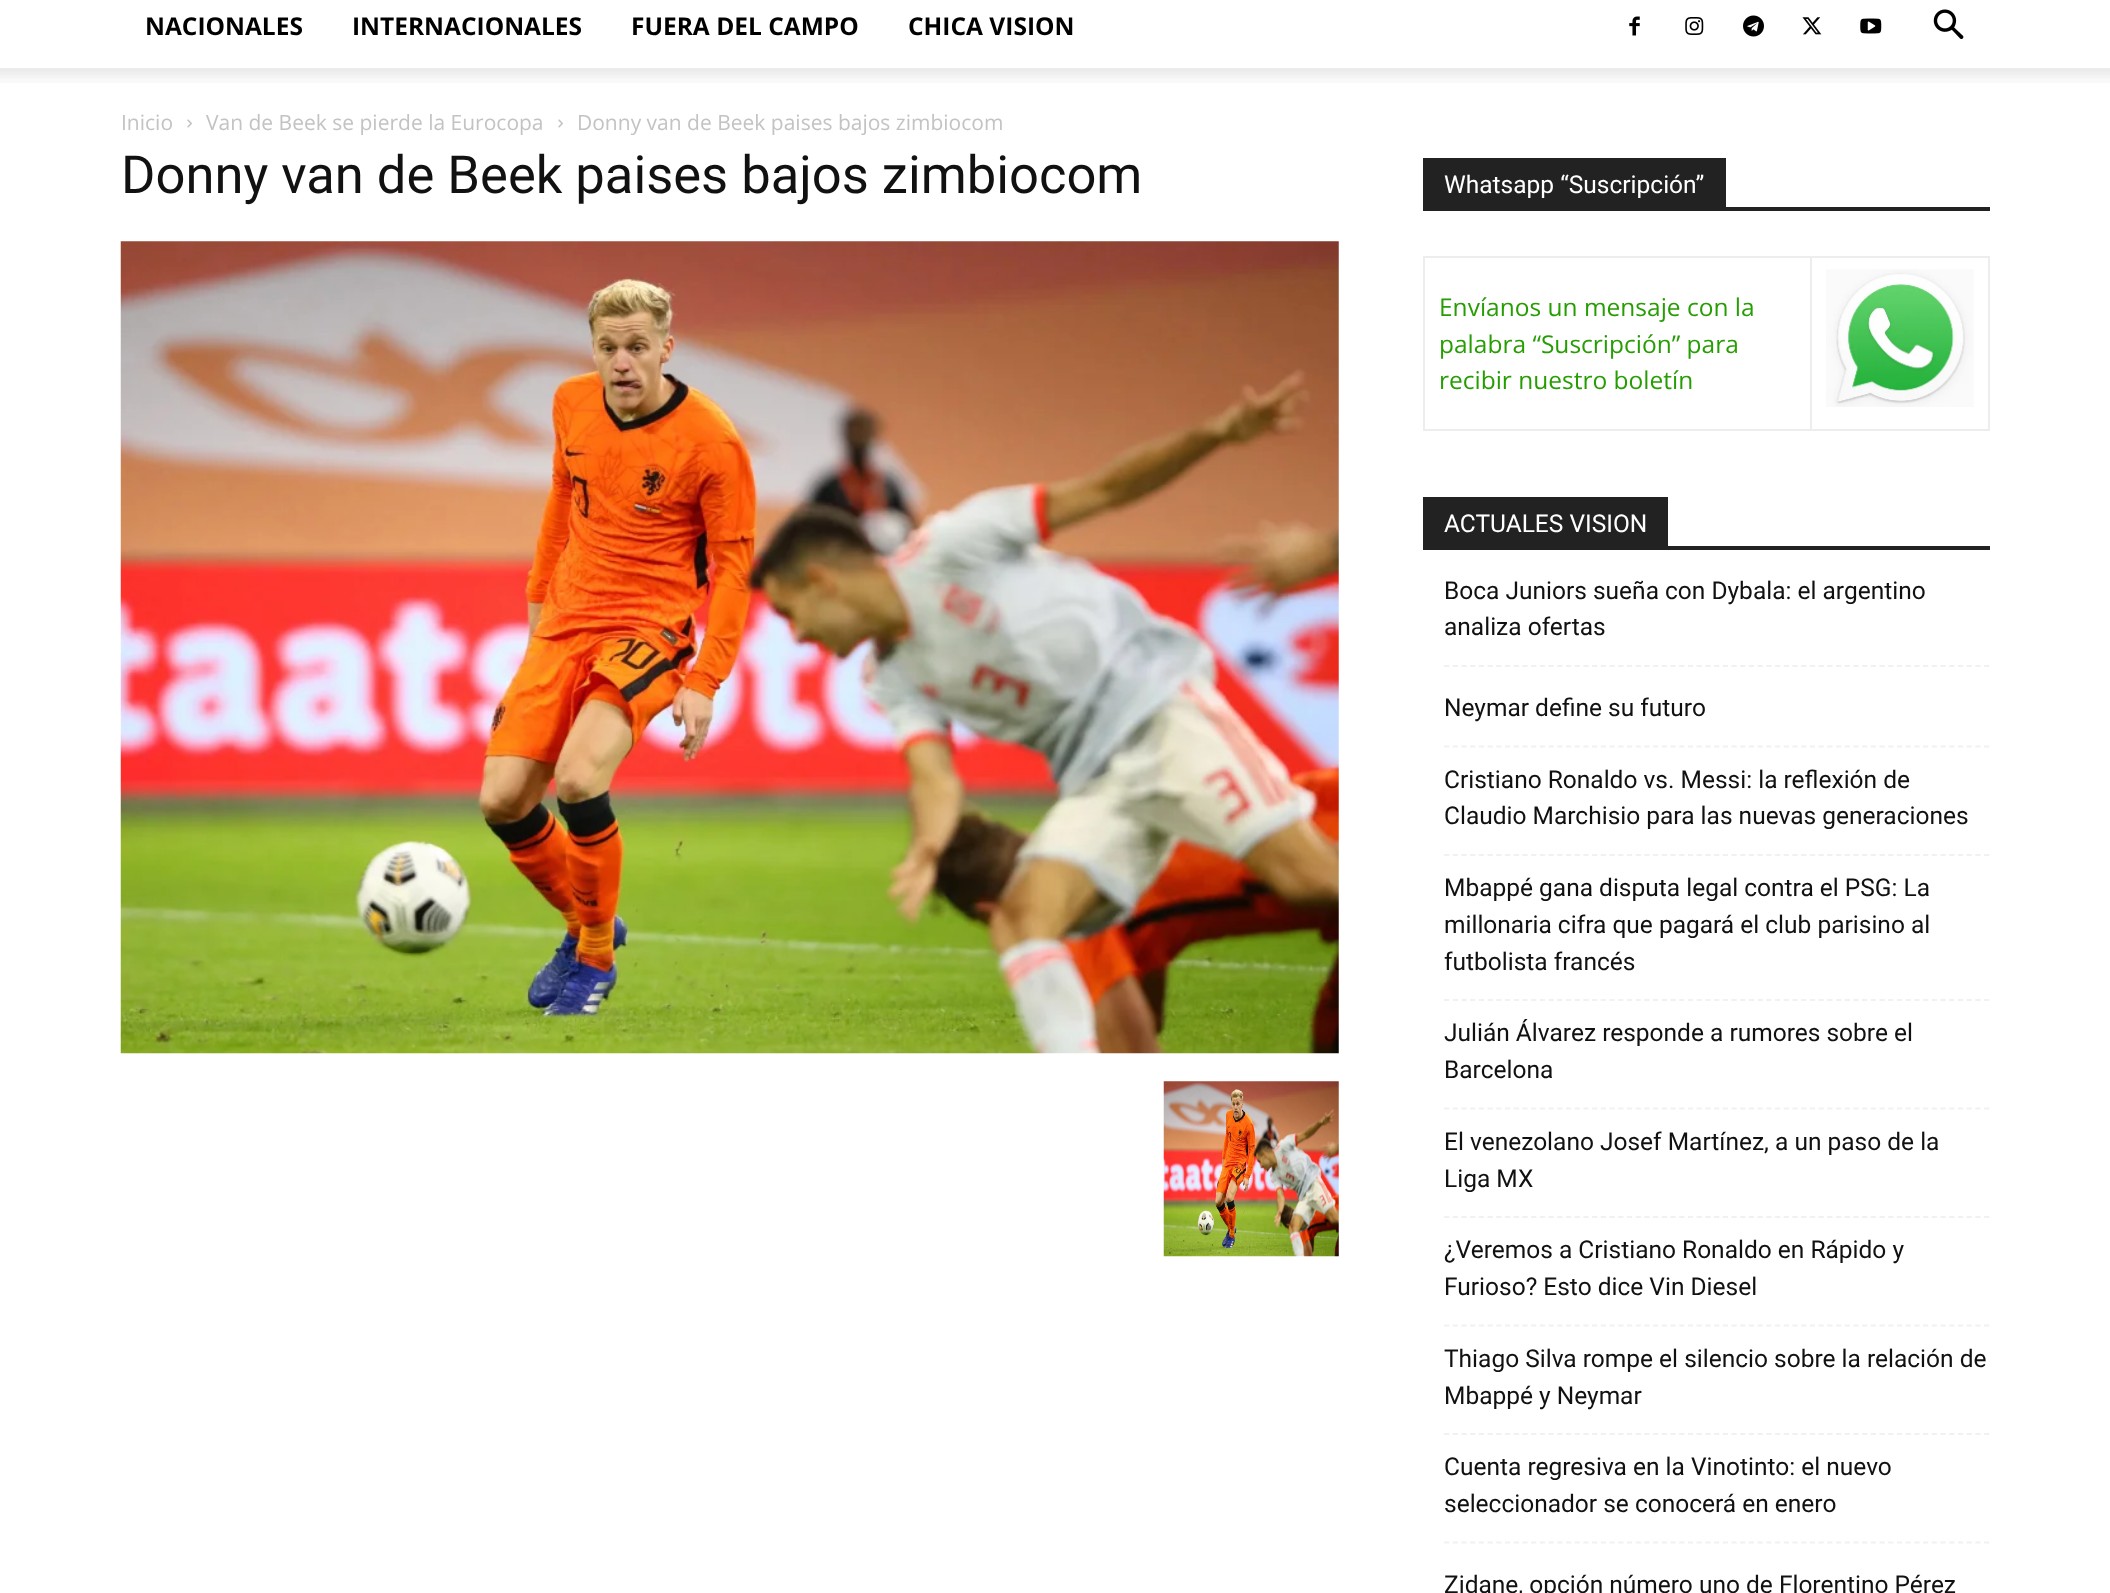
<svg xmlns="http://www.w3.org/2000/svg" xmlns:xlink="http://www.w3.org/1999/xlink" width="2110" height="1593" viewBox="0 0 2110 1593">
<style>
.cls-1{font:bold 24.5px Open Sans;fill:#000000}
.cls-2{font:21px Open Sans;fill:#c3c3c3}
.cls-3{font:52.5px Roboto;fill:#111111}
.cls-4{font:24.5px Roboto;fill:#ffffff}
.cls-5{font:24.5px Open Sans;fill:#279d04}
.cls-6{font:24.5px Roboto;fill:#111111}
</style>
<rect width="100%" height="100%" fill="#ffffff"/>
<image xlink:href="image0.png" x="1629" y="16" width="11" height="20"/>
<image xlink:href="image1.png" x="1685" y="17" width="19" height="18"/>
<image xlink:href="image2.png" x="1743" y="15" width="21" height="22"/>
<image xlink:href="image3.png" x="1802" y="17" width="20" height="18"/>
<image xlink:href="image4.png" x="1860" y="18" width="22" height="16"/>
<image xlink:href="image5.png" x="1933" y="9" width="31" height="30"/>
<image xlink:href="image6.png" x="0" y="68" width="2110" height="15"/>
<image xlink:href="image7.png" x="187" y="119" width="5" height="9"/>
<image xlink:href="image7.png" x="558" y="119" width="5" height="9"/>
<image xlink:href="image8.png" x="120" y="241" width="1219" height="813"/>
<image xlink:href="image9.png" x="1163" y="1081" width="176" height="176"/>
<rect fill="#222222" x="1423" y="207" width="567" height="4"/>
<rect fill="#222222" x="1423" y="158" width="303" height="49"/>
<rect fill="#ededed" x="1810" y="256" width="180" height="2"/>
<rect fill="#ededed" x="1988" y="256" width="2" height="175"/>
<rect fill="#ededed" x="1810" y="429" width="180" height="2"/>
<rect fill="#ededed" x="1810" y="256" width="2" height="175"/>
<rect fill="#ededed" x="1423" y="256" width="388" height="2"/>
<rect fill="#ededed" x="1423" y="429" width="388" height="2"/>
<rect fill="#ededed" x="1423" y="256" width="2" height="175"/>
<image xlink:href="image10.png" x="1826" y="269" width="148" height="138"/>
<rect fill="#222222" x="1423" y="546" width="567" height="4"/>
<rect fill="#222222" x="1423" y="497" width="245" height="49"/>
<path fill="none" stroke="#f1f1f1" stroke-width="1.8" stroke-dasharray="5.25 3.46" d="M1444 666H1990"/>
<path fill="none" stroke="#f1f1f1" stroke-width="1.8" stroke-dasharray="5.25 3.46" d="M1444 746.5H1990"/>
<path fill="none" stroke="#f1f1f1" stroke-width="1.8" stroke-dasharray="5.25 3.46" d="M1444 855H1990"/>
<path fill="none" stroke="#f1f1f1" stroke-width="1.8" stroke-dasharray="5.25 3.46" d="M1444 1000H1990"/>
<path fill="none" stroke="#f1f1f1" stroke-width="1.8" stroke-dasharray="5.25 3.46" d="M1444 1108.5H1990"/>
<path fill="none" stroke="#f1f1f1" stroke-width="1.8" stroke-dasharray="5.25 3.46" d="M1444 1217H1990"/>
<path fill="none" stroke="#f1f1f1" stroke-width="1.8" stroke-dasharray="5.25 3.46" d="M1444 1325.5H1990"/>
<path fill="none" stroke="#f1f1f1" stroke-width="1.8" stroke-dasharray="5.25 3.46" d="M1444 1434H1990"/>
<path fill="none" stroke="#f1f1f1" stroke-width="1.8" stroke-dasharray="5.25 3.46" d="M1444 1542.5H1990"/>
<text class="cls-1" x="145" y="35">NACIONALES</text>
<text class="cls-1" x="352" y="35">INTERNACIONALES</text>
<text class="cls-1" x="631" y="35">FUERA DEL CAMPO</text>
<text class="cls-1" x="908" y="35">CHICA VISION</text>
<text class="cls-2" x="121" y="130">Inicio</text>
<text class="cls-2" x="206" y="130">Van de Beek se pierde la Eurocopa</text>
<text class="cls-2" x="577" y="130">Donny van de Beek paises bajos zimbiocom</text>
<text class="cls-3" x="121" y="193">Donny van de Beek paises bajos zimbiocom</text>
<text class="cls-4" x="1444" y="193">Whatsapp “Suscripción”</text>
<text class="cls-5"><tspan x="1439" y="316">Envíanos un mensaje con la</tspan><tspan x="1439" y="353">palabra “Suscripción” para</tspan><tspan x="1439" y="389">recibir nuestro boletín</tspan></text>
<text class="cls-4" x="1444" y="532">ACTUALES VISION</text>
<text class="cls-6"><tspan x="1444" y="599">Boca Juniors sueña con Dybala: el argentino</tspan><tspan x="1444" y="635">analiza ofertas</tspan></text>
<text class="cls-6" x="1444" y="716">Neymar define su futuro</text>
<text class="cls-6"><tspan x="1444" y="788">Cristiano Ronaldo vs. Messi: la reflexión de</tspan><tspan x="1444" y="824">Claudio Marchisio para las nuevas generaciones</tspan></text>
<text class="cls-6"><tspan x="1444" y="896">Mbappé gana disputa legal contra el PSG: La</tspan><tspan x="1444" y="933">millonaria cifra que pagará el club parisino al</tspan><tspan x="1444" y="970">futbolista francés</tspan></text>
<text class="cls-6"><tspan x="1444" y="1041">Julián Álvarez responde a rumores sobre el</tspan><tspan x="1444" y="1078">Barcelona</tspan></text>
<text class="cls-6"><tspan x="1444" y="1150">El venezolano Josef Martínez, a un paso de la</tspan><tspan x="1444" y="1187">Liga MX</tspan></text>
<text class="cls-6"><tspan x="1444" y="1258">¿Veremos a Cristiano Ronaldo en Rápido y</tspan><tspan x="1444" y="1295">Furioso? Esto dice Vin Diesel</tspan></text>
<text class="cls-6"><tspan x="1444" y="1367">Thiago Silva rompe el silencio sobre la relación de</tspan><tspan x="1444" y="1404">Mbappé y Neymar</tspan></text>
<text class="cls-6"><tspan x="1444" y="1475">Cuenta regresiva en la Vinotinto: el nuevo</tspan><tspan x="1444" y="1512">seleccionador se conocerá en enero</tspan></text>
<text class="cls-6" x="1444" y="1593">Zidane, opción número uno de Florentino Pérez</text>
</svg>
